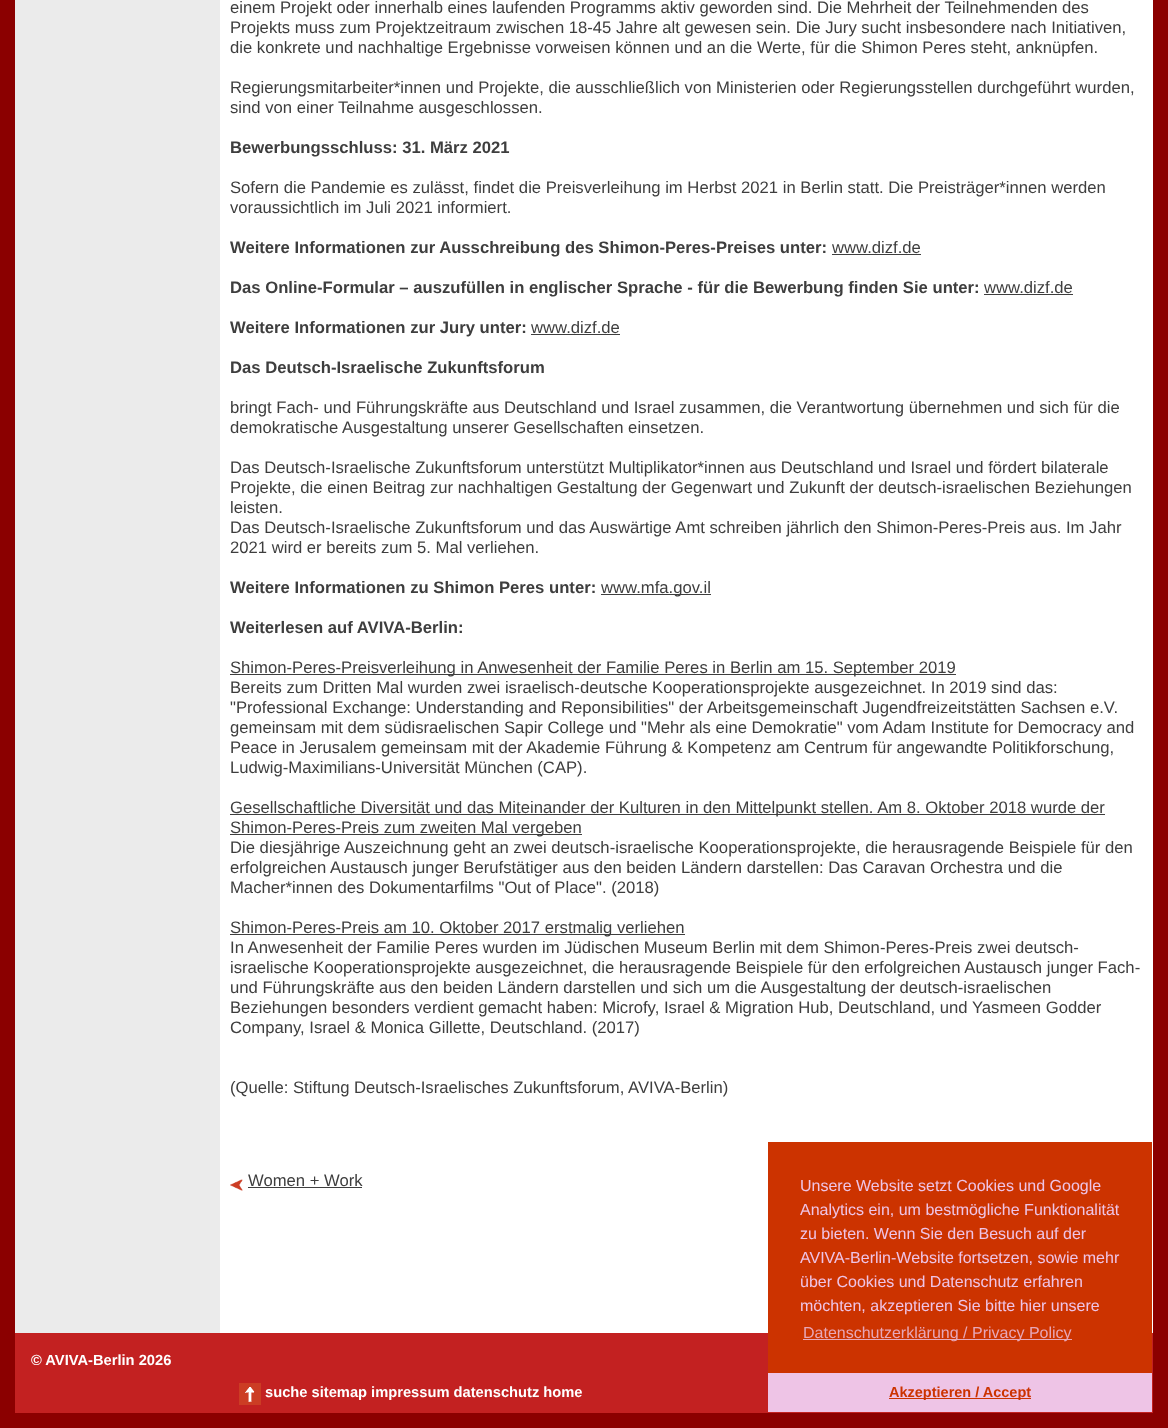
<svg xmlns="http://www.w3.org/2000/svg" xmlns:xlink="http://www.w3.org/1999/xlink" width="1168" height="1428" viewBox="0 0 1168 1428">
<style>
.cls-1{font:16.67px Liberation Sans;fill:#3e3e3e}
.cls-2{font:bold 16.67px Liberation Sans;fill:#3e3e3e}
.cls-3{font:bold 14.7px Liberation Sans;fill:#ffffff}
.cls-4{font:16px Liberation Sans;fill:#eec4e6}
.cls-5{font:16px Liberation Sans;fill:#e7a7b8}
.cls-6{font:bold 14.5px Liberation Sans;fill:#cc3300}
</style>
<rect width="100%" height="100%" fill="#8b0000"/>
<rect fill="#ebebeb" x="15" y="0" width="205" height="1333"/>
<rect fill="#ffffff" x="220" y="0" width="933" height="1333"/>
<rect fill="#3e3e3e" x="832" y="254" width="89" height="1"/>
<rect fill="#3e3e3e" x="984" y="294" width="89" height="1"/>
<rect fill="#3e3e3e" x="531" y="334" width="89" height="1"/>
<rect fill="#3e3e3e" x="601" y="594" width="110" height="1"/>
<rect fill="#3e3e3e" x="230" y="674" width="726" height="1"/>
<rect fill="#3e3e3e" x="230" y="814" width="875" height="1"/>
<rect fill="#3e3e3e" x="230" y="834" width="352" height="1"/>
<rect fill="#3e3e3e" x="230" y="934" width="455" height="1"/>
<image xlink:href="image0.png" x="230" y="1179" width="13" height="12"/>
<rect fill="#3e3e3e" x="248" y="1187" width="114" height="1"/>
<rect fill="#c32121" x="15" y="1333" width="1138" height="80"/>
<image xlink:href="image1.png" x="239" y="1383" width="22" height="22"/>
<rect fill="#cc3300" x="768" y="1142" width="384" height="231"/>
<rect fill="#e7a7b8" x="803" y="1339" width="269" height="1"/>
<rect fill="#eec4e6" x="768" y="1373" width="384" height="39"/>
<rect fill="#cc3300" x="889" y="1398" width="142" height="1"/>
<text class="cls-1"><tspan x="230" y="13">einem Projekt oder innerhalb eines laufenden Programms aktiv geworden sind. Die Mehrheit der Teilnehmenden des</tspan><tspan x="230" y="33">Projekts muss zum Projektzeitraum zwischen 18-45 Jahre alt gewesen sein. Die Jury sucht insbesondere nach Initiativen,</tspan><tspan x="230" y="53">die konkrete und nachhaltige Ergebnisse vorweisen können und an die Werte, für die Shimon Peres steht, anknüpfen.</tspan></text>
<text class="cls-1"><tspan x="230" y="93">Regierungsmitarbeiter*innen und Projekte, die ausschließlich von Ministerien oder Regierungsstellen durchgeführt wurden,</tspan><tspan x="230" y="113">sind von einer Teilnahme ausgeschlossen.</tspan></text>
<text class="cls-2" x="230" y="153">Bewerbungsschluss: 31. März 2021</text>
<text class="cls-1"><tspan x="230" y="193">Sofern die Pandemie es zulässt, findet die Preisverleihung im Herbst 2021 in Berlin statt. Die Preisträger*innen werden</tspan><tspan x="230" y="213">voraussichtlich im Juli 2021 informiert.</tspan></text>
<text class="cls-2" x="230" y="253">Weitere Informationen zur Ausschreibung des Shimon-Peres-Preises unter:</text>
<text class="cls-1" x="832" y="253">www.dizf.de</text>
<text class="cls-2" x="230" y="293">Das Online-Formular – auszufüllen in englischer Sprache - für die Bewerbung finden Sie unter:</text>
<text class="cls-1" x="984" y="293">www.dizf.de</text>
<text class="cls-2" x="230" y="333">Weitere Informationen zur Jury unter:</text>
<text class="cls-1" x="531" y="333">www.dizf.de</text>
<text class="cls-2" x="230" y="373">Das Deutsch-Israelische Zukunftsforum</text>
<text class="cls-1"><tspan x="230" y="413">bringt Fach- und Führungskräfte aus Deutschland und Israel zusammen, die Verantwortung übernehmen und sich für die</tspan><tspan x="230" y="433">demokratische Ausgestaltung unserer Gesellschaften einsetzen.</tspan></text>
<text class="cls-1"><tspan x="230" y="473">Das Deutsch-Israelische Zukunftsforum unterstützt Multiplikator*innen aus Deutschland und Israel und fördert bilaterale</tspan><tspan x="230" y="493">Projekte, die einen Beitrag zur nachhaltigen Gestaltung der Gegenwart und Zukunft der deutsch-israelischen Beziehungen</tspan><tspan x="230" y="513">leisten.</tspan><tspan x="230" y="533">Das Deutsch-Israelische Zukunftsforum und das Auswärtige Amt schreiben jährlich den Shimon-Peres-Preis aus. Im Jahr</tspan><tspan x="230" y="553">2021 wird er bereits zum 5. Mal verliehen.</tspan></text>
<text class="cls-2" x="230" y="593">Weitere Informationen zu Shimon Peres unter:</text>
<text class="cls-1" x="601" y="593">www.mfa.gov.il</text>
<text class="cls-2" x="230" y="633">Weiterlesen auf AVIVA-Berlin:</text>
<text class="cls-1"><tspan x="230" y="673">Shimon-Peres-Preisverleihung in Anwesenheit der Familie Peres in Berlin am 15. September 2019</tspan><tspan x="230" y="693">Bereits zum Dritten Mal wurden zwei israelisch-deutsche Kooperationsprojekte ausgezeichnet. In 2019 sind das:</tspan><tspan x="230" y="713">"Professional Exchange: Understanding and Reponsibilities" der Arbeitsgemeinschaft Jugendfreizeitstätten Sachsen e.V.</tspan><tspan x="230" y="733">gemeinsam mit dem südisraelischen Sapir College und "Mehr als eine Demokratie" vom Adam Institute for Democracy and</tspan><tspan x="230" y="753">Peace in Jerusalem gemeinsam mit der Akademie Führung &amp; Kompetenz am Centrum für angewandte Politikforschung,</tspan><tspan x="230" y="773">Ludwig-Maximilians-Universität München (CAP).</tspan></text>
<text class="cls-1"><tspan x="230" y="813">Gesellschaftliche Diversität und das Miteinander der Kulturen in den Mittelpunkt stellen. Am 8. Oktober 2018 wurde der</tspan><tspan x="230" y="833">Shimon-Peres-Preis zum zweiten Mal vergeben</tspan><tspan x="230" y="853">Die diesjährige Auszeichnung geht an zwei deutsch-israelische Kooperationsprojekte, die herausragende Beispiele für den</tspan><tspan x="230" y="873">erfolgreichen Austausch junger Berufstätiger aus den beiden Ländern darstellen: Das Caravan Orchestra und die</tspan><tspan x="230" y="893">Macher*innen des Dokumentarfilms "Out of Place". (2018)</tspan></text>
<text class="cls-1"><tspan x="230" y="933">Shimon-Peres-Preis am 10. Oktober 2017 erstmalig verliehen</tspan><tspan x="230" y="953">In Anwesenheit der Familie Peres wurden im Jüdischen Museum Berlin mit dem Shimon-Peres-Preis zwei deutsch-</tspan><tspan x="230" y="973">israelische Kooperationsprojekte ausgezeichnet, die herausragende Beispiele für den erfolgreichen Austausch junger Fach-</tspan><tspan x="230" y="993">und Führungskräfte aus den beiden Ländern darstellen und sich um die Ausgestaltung der deutsch-israelischen</tspan><tspan x="230" y="1013">Beziehungen besonders verdient gemacht haben: Microfy, Israel &amp; Migration Hub, Deutschland, und Yasmeen Godder</tspan><tspan x="230" y="1033">Company, Israel &amp; Monica Gillette, Deutschland. (2017)</tspan></text>
<text class="cls-1" x="230" y="1093">(Quelle: Stiftung Deutsch-Israelisches Zukunftsforum, AVIVA-Berlin)</text>
<text class="cls-1" x="248" y="1186">Women + Work</text>
<text class="cls-3" x="31" y="1365">© AVIVA-Berlin 2026</text>
<text class="cls-3" x="265" y="1397">suche sitemap impressum datenschutz home</text>
<text class="cls-4"><tspan x="800" y="1191">Unsere Website setzt Cookies und Google</tspan><tspan x="800" y="1215">Analytics ein, um bestmögliche Funktionalität</tspan><tspan x="800" y="1239">zu bieten. Wenn Sie den Besuch auf der</tspan><tspan x="800" y="1263">AVIVA-Berlin-Website fortsetzen, sowie mehr</tspan><tspan x="800" y="1287">über Cookies und Datenschutz erfahren</tspan><tspan x="800" y="1311">möchten, akzeptieren Sie bitte hier unsere</tspan></text>
<text class="cls-5" x="803" y="1338">Datenschutzerklärung / Privacy Policy</text>
<text class="cls-6" x="889" y="1397">Akzeptieren / Accept</text>
</svg>
